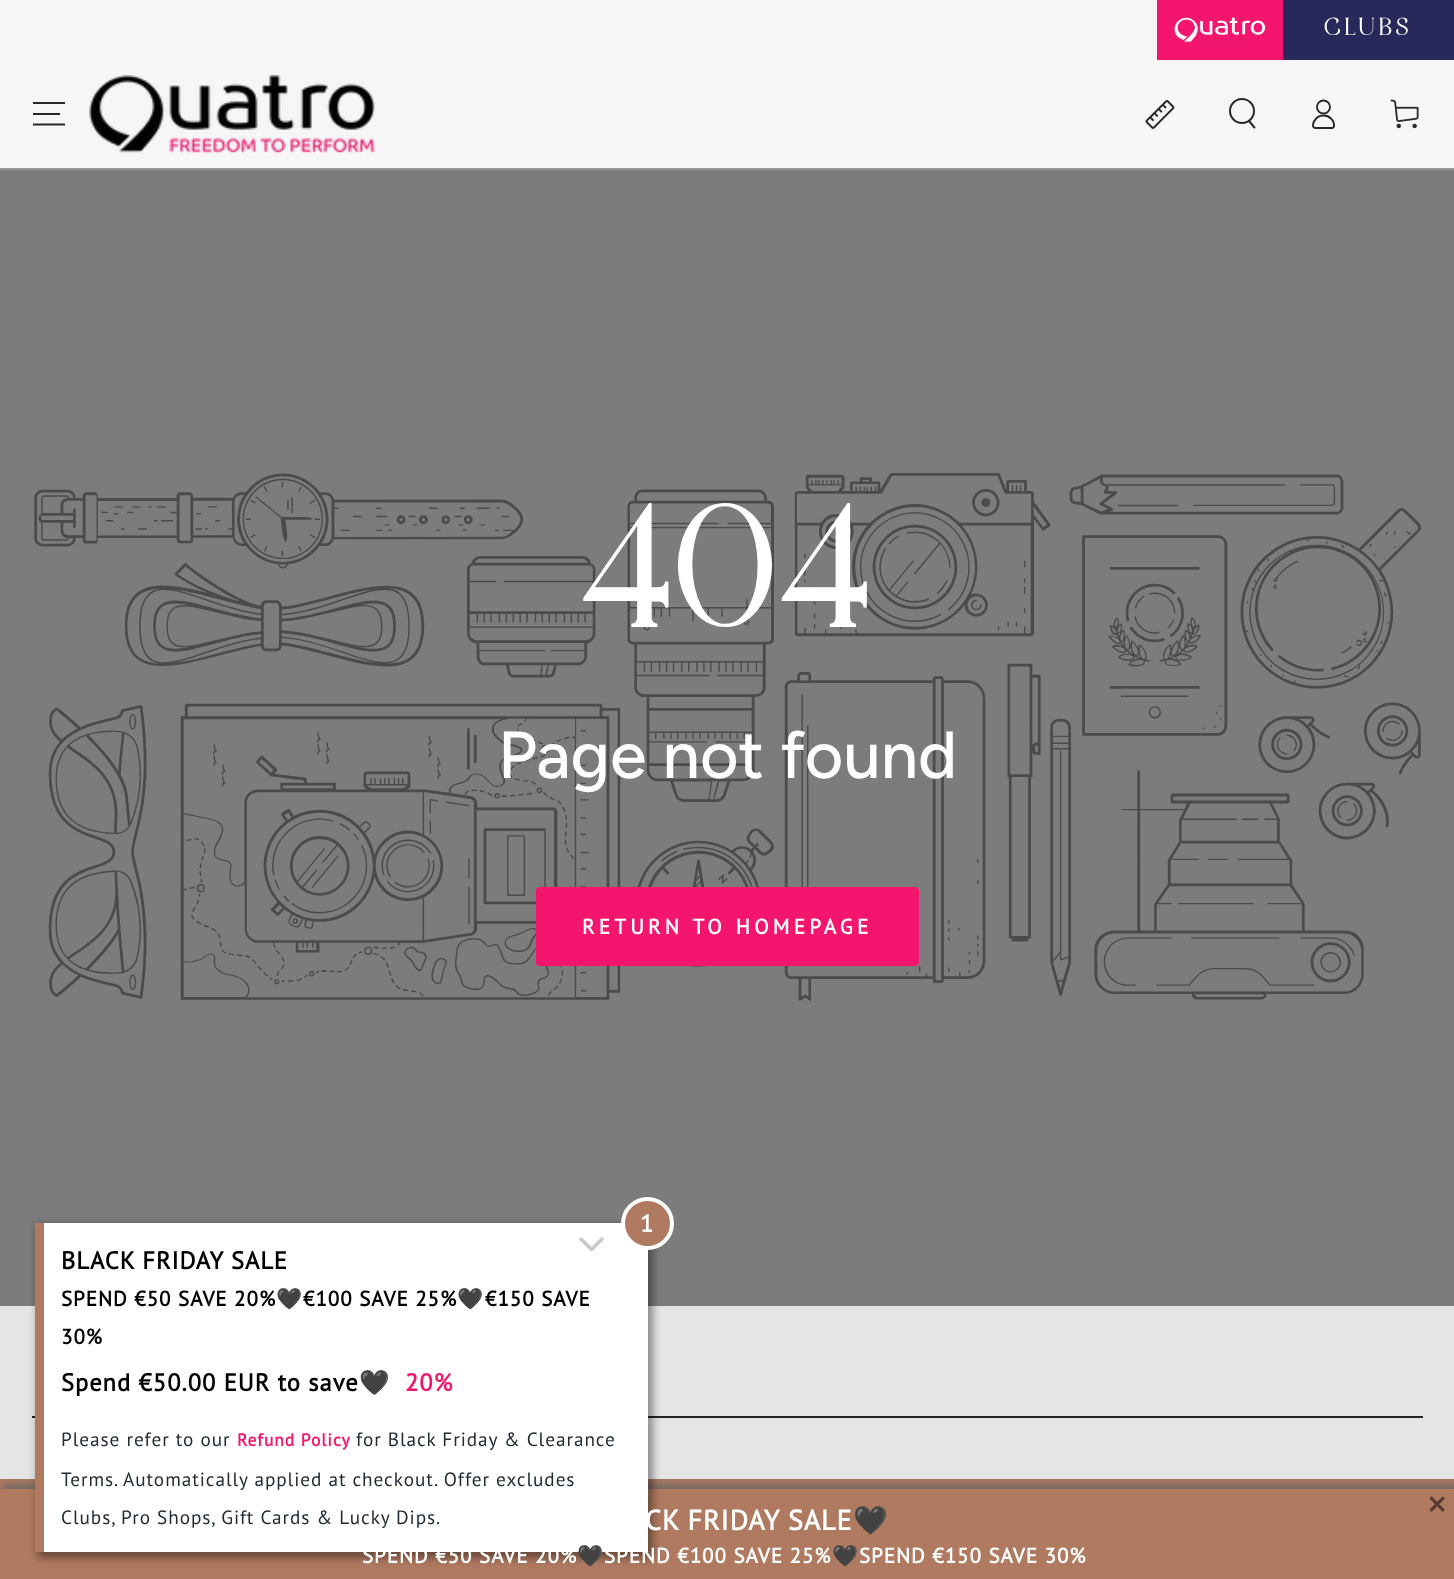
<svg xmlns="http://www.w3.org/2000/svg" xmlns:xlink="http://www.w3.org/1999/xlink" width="1454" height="1579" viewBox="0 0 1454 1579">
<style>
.cls-1{font:17.5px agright;letter-spacing:3.5px;fill:#ffffff}
.cls-2{font:126px agright;letter-spacing:2.5px;fill:#ffffff}
.cls-3{font:500 66.5px Figtree;fill:#ffffff}
.cls-4{font:bold 21px PT Sans;letter-spacing:4.25px;fill:#ffffff}
.cls-5{font:bold 24.5px PT Sans;letter-spacing:0.95px;fill:#ffffff}
.cls-6{font:bold 24.5px PT Sans;letter-spacing:0.95px;fill:#000000}
.cls-7{font:bold 21px PT Sans;letter-spacing:0.95px;fill:#000000}
.cls-8{font:bold 21px Noto Color Emoji;letter-spacing:0.95px;fill:#000000}
.cls-9{font:bold 24.5px Noto Color Emoji;letter-spacing:0.95px;fill:#000000}
.cls-10{font:bold 24.5px PT Sans;letter-spacing:0.95px;fill:#f4166e}
.cls-11{font:19.25px PT Sans;letter-spacing:0.95px;fill:#212b36}
.cls-12{font:bold 17.5px PT Sans;letter-spacing:0.95px;fill:#f4166e}
.cls-13{font:bold 28px PT Sans;letter-spacing:0.95px;fill:#ffffff}
.cls-14{font:bold 28px Noto Color Emoji;letter-spacing:0.95px;fill:#ffffff}
.cls-15{font:bold 21px PT Sans;letter-spacing:0.95px;fill:#ffffff}
.cls-16{font:bold 21px Noto Color Emoji;letter-spacing:0.95px;fill:#ffffff}
.cls-17{font:44px PT Sans;letter-spacing:0.95px;fill:#583d31}
</style>
<defs>
<clipPath id="clip1"><rect x="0" y="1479" width="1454" height="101"/></clipPath>
</defs>
<rect width="100%" height="100%" fill="#f6f6f6"/>
<rect fill="#969798" x="0" y="168" width="1454" height="2"/>
<rect fill="#f4166e" x="1157" y="0" width="126" height="60"/>
<image xlink:href="image0.png" x="1174" y="17" width="92" height="25"/>
<rect fill="#28285b" x="1283" y="0" width="171" height="60"/>
<path fill="none" stroke="#282828" stroke-width="1.8" d="M33 124.5H65M33 114H60M33 103H65"/>
<image xlink:href="image1.png" x="89" y="75" width="286" height="78"/>
<image xlink:href="image2.png" x="1145" y="100" width="30" height="29"/>
<circle fill="none" stroke="#282828" stroke-width="2" cx="1242" cy="111" r="12"/>
<path fill="none" stroke="#282828" stroke-width="2" stroke-linecap="round" d="M1249 121L1254.5 127.5"/>
<path fill="none" stroke="#282828" stroke-width="1.9" d="M1323.5 115.5C1314 115.5 1310 128 1315.5 128H1332.5C1336 126.5 1333 120 1331 118.5C1329 116.5 1326.5 115.5 1323.5 115.5Z"/>
<circle fill="none" stroke="#282828" stroke-width="1.9" cx="1323.5" cy="107" r="6.5"/>
<image xlink:href="image3.png" x="1390" y="99" width="29" height="30"/>
<rect fill="#7c7c7c" x="0" y="170" width="1454" height="1136"/>
<image xlink:href="image4.png" x="34" y="473" width="1387" height="528"/>
<rect fill="#f4166e" x="536" y="887" width="383" height="79" rx="4"/>
<rect fill="#e5e5e5" x="0" y="1306" width="1454" height="173"/>
<rect fill="#212326" x="32" y="1416" width="1391" height="2"/>
<rect fill="#b07a61" x="0" y="1479" width="1454" height="10"/>
<g clip-path="url(#clip1)">
<rect fill="#646464" fill-opacity="0.8" filter="blur(4.5px)" x="2" y="1484" width="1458" height="95"/>
</g>
<rect fill="#b07a61" x="0" y="1489" width="1454" height="90"/>
<rect fill="#000000" fill-opacity="0.4" filter="blur(4.5px)" x="37" y="1225" width="616" height="333"/>
<rect fill="#ffffff" x="44" y="1223" width="604" height="329"/>
<circle fill="#b07a61" stroke="#ffffff" stroke-width="4" cx="647.5" cy="1223.5" r="24.5"/>
<rect fill="#b07a61" x="35" y="1223" width="9" height="329"/>
<image xlink:href="image5.png" x="579" y="1237" width="25" height="15"/>
<text class="cls-1" x="1324" y="35">CLUBS</text>
<text class="cls-2" x="581" y="627">404</text>
<text class="cls-3" x="498" y="778">Page not found</text>
<text class="cls-4" x="582" y="934">RETURN TO HOMEPAGE</text>
<text class="cls-5" x="640" y="1232">1</text>
<text class="cls-6" x="61" y="1269">BLACK FRIDAY SALE</text>
<text class="cls-7" x="61" y="1306">SPEND €50 SAVE 20%</text>
<text class="cls-8" x="276" y="1306">🖤</text>
<text class="cls-7" x="303" y="1306">€100 SAVE 25%</text>
<text class="cls-8" x="457" y="1306">🖤</text>
<text class="cls-7" x="485" y="1306">€150 SAVE</text>
<text class="cls-7" x="61" y="1344">30%</text>
<text class="cls-6" x="61" y="1391">Spend €50.00 EUR to save</text>
<text class="cls-9" x="359" y="1391">🖤</text>
<text class="cls-10" x="405" y="1391">20%</text>
<text class="cls-11" x="61" y="1446">Please refer to our</text>
<text class="cls-12" x="237" y="1446">Refund Policy</text>
<text class="cls-11" x="356" y="1446">for Black Friday &amp; Clearance</text>
<text class="cls-11"><tspan x="61" y="1486">Terms. Automatically applied at checkout. Offer excludes</tspan><tspan x="61" y="1524">Clubs, Pro Shops, Gift Cards &amp; Lucky Dips.</tspan></text>
<text class="cls-13" x="645" y="1530">CK FRIDAY SALE</text>
<text class="cls-14" x="853" y="1530">🖤</text>
<text class="cls-15" x="362" y="1563">SPEND €50 SAVE 20%</text>
<text class="cls-16" x="577" y="1563">🖤</text>
<text class="cls-15" x="604" y="1563">SPEND €100 SAVE 25%</text>
<text class="cls-16" x="832" y="1563">🖤</text>
<text class="cls-15" x="859" y="1563">SPEND €150 SAVE 30%</text>
<text class="cls-17" x="1426" y="1519">×</text>
</svg>
